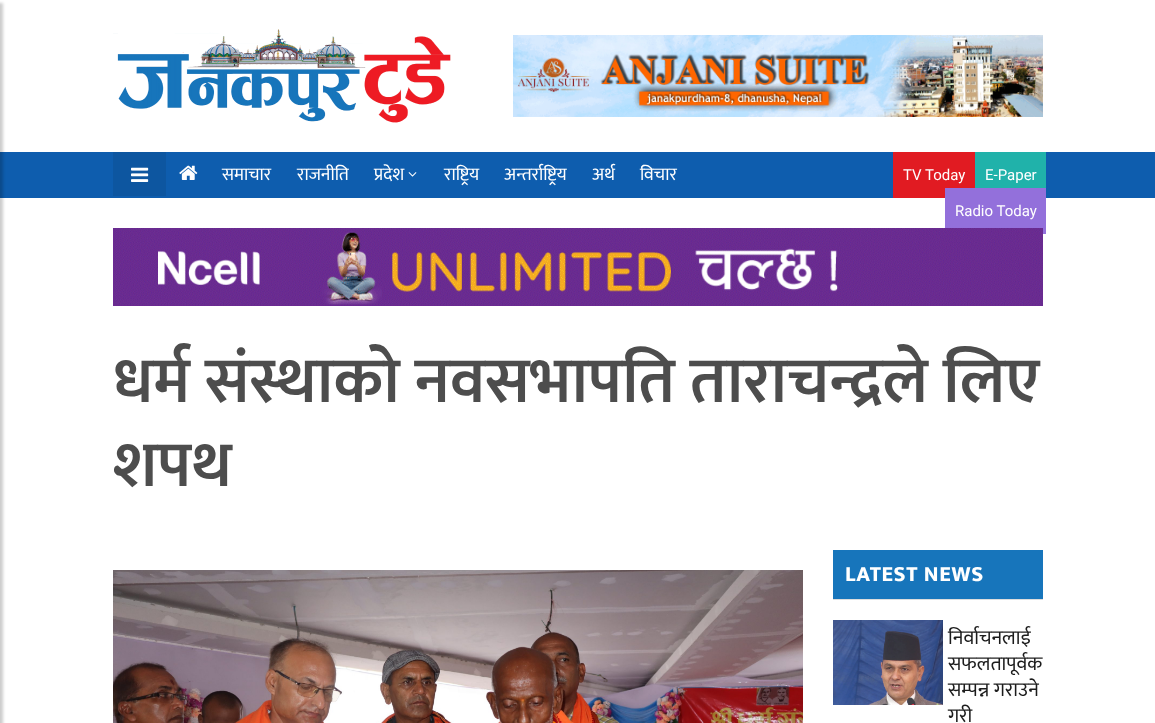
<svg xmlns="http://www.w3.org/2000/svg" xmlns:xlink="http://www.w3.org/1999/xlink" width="1155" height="723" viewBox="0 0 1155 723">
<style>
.cls-1{font:18px Ek Mukta;fill:#ffffff}
.cls-2{font:15px Roboto;fill:#ffffff}
.cls-3{font:600 65px Ek Mukta;fill:#4d4d4d}
.cls-4{font:800 22px Ek Mukta;letter-spacing:0.6px;fill:#ffffff}
.cls-5{font:20px Ek Mukta;fill:#1c1c1c}
</style>
<rect width="100%" height="100%" fill="#ffffff"/>
<rect fill="#0e5dae" x="0" y="152" width="1155" height="46"/>
<rect fill="#000000" fill-opacity="0.2" filter="blur(1.5px)" x="-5" y="3" width="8" height="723"/>
<image xlink:href="image0.png" x="113" y="29" width="338" height="94"/>
<image xlink:href="image1.png" x="513" y="35" width="530" height="82"/>
<rect fill="#0d56a0" x="113" y="152" width="53" height="44"/>
<image xlink:href="image2.png" x="131" y="167" width="18" height="15"/>
<image xlink:href="image3.png" x="179" y="165" width="19" height="15"/>
<image xlink:href="image4.png" x="408" y="172" width="9" height="5"/>
<rect fill="#e11b22" x="893" y="152" width="82" height="46"/>
<rect fill="#20b2aa" x="975" y="152" width="71" height="36"/>
<rect fill="#9370db" x="945" y="188" width="101" height="46"/>
<image xlink:href="image5.png" x="113" y="228" width="930" height="78"/>
<image xlink:href="image6.png" x="113" y="570" width="690" height="153"/>
<rect fill="#1775bb" x="833" y="550" width="210" height="49"/>
<rect fill="#dddddd" x="833" y="599" width="210" height="1"/>
<image xlink:href="image7.png" x="833" y="620" width="110" height="85"/>
<text class="cls-1" x="222" y="180">समाचार</text>
<text class="cls-1" x="297" y="180">राजनीति</text>
<text class="cls-1" x="374" y="180">प्रदेश</text>
<text class="cls-1" x="444" y="180">राष्ट्रिय</text>
<text class="cls-1" x="504" y="180">अन्तर्राष्ट्रिय</text>
<text class="cls-1" x="592" y="180">अर्थ</text>
<text class="cls-1" x="640" y="180">विचार</text>
<text class="cls-2" x="903" y="180">TV Today</text>
<text class="cls-2" x="985" y="180">E-Paper</text>
<text class="cls-2" x="955" y="216">Radio Today</text>
<text class="cls-3"><tspan x="113" y="402">धर्म संस्थाको नवसभापति ताराचन्द्रले लिए</tspan><tspan x="113" y="486">शपथ</tspan></text>
<text class="cls-4" x="845" y="581">LATEST NEWS</text>
<text class="cls-5"><tspan x="948" y="644">निर्वाचनलाई</tspan><tspan x="948" y="670">सफलतापूर्वक</tspan><tspan x="948" y="696">सम्पन्न गराउने</tspan><tspan x="948" y="722">गरी</tspan></text>
</svg>
